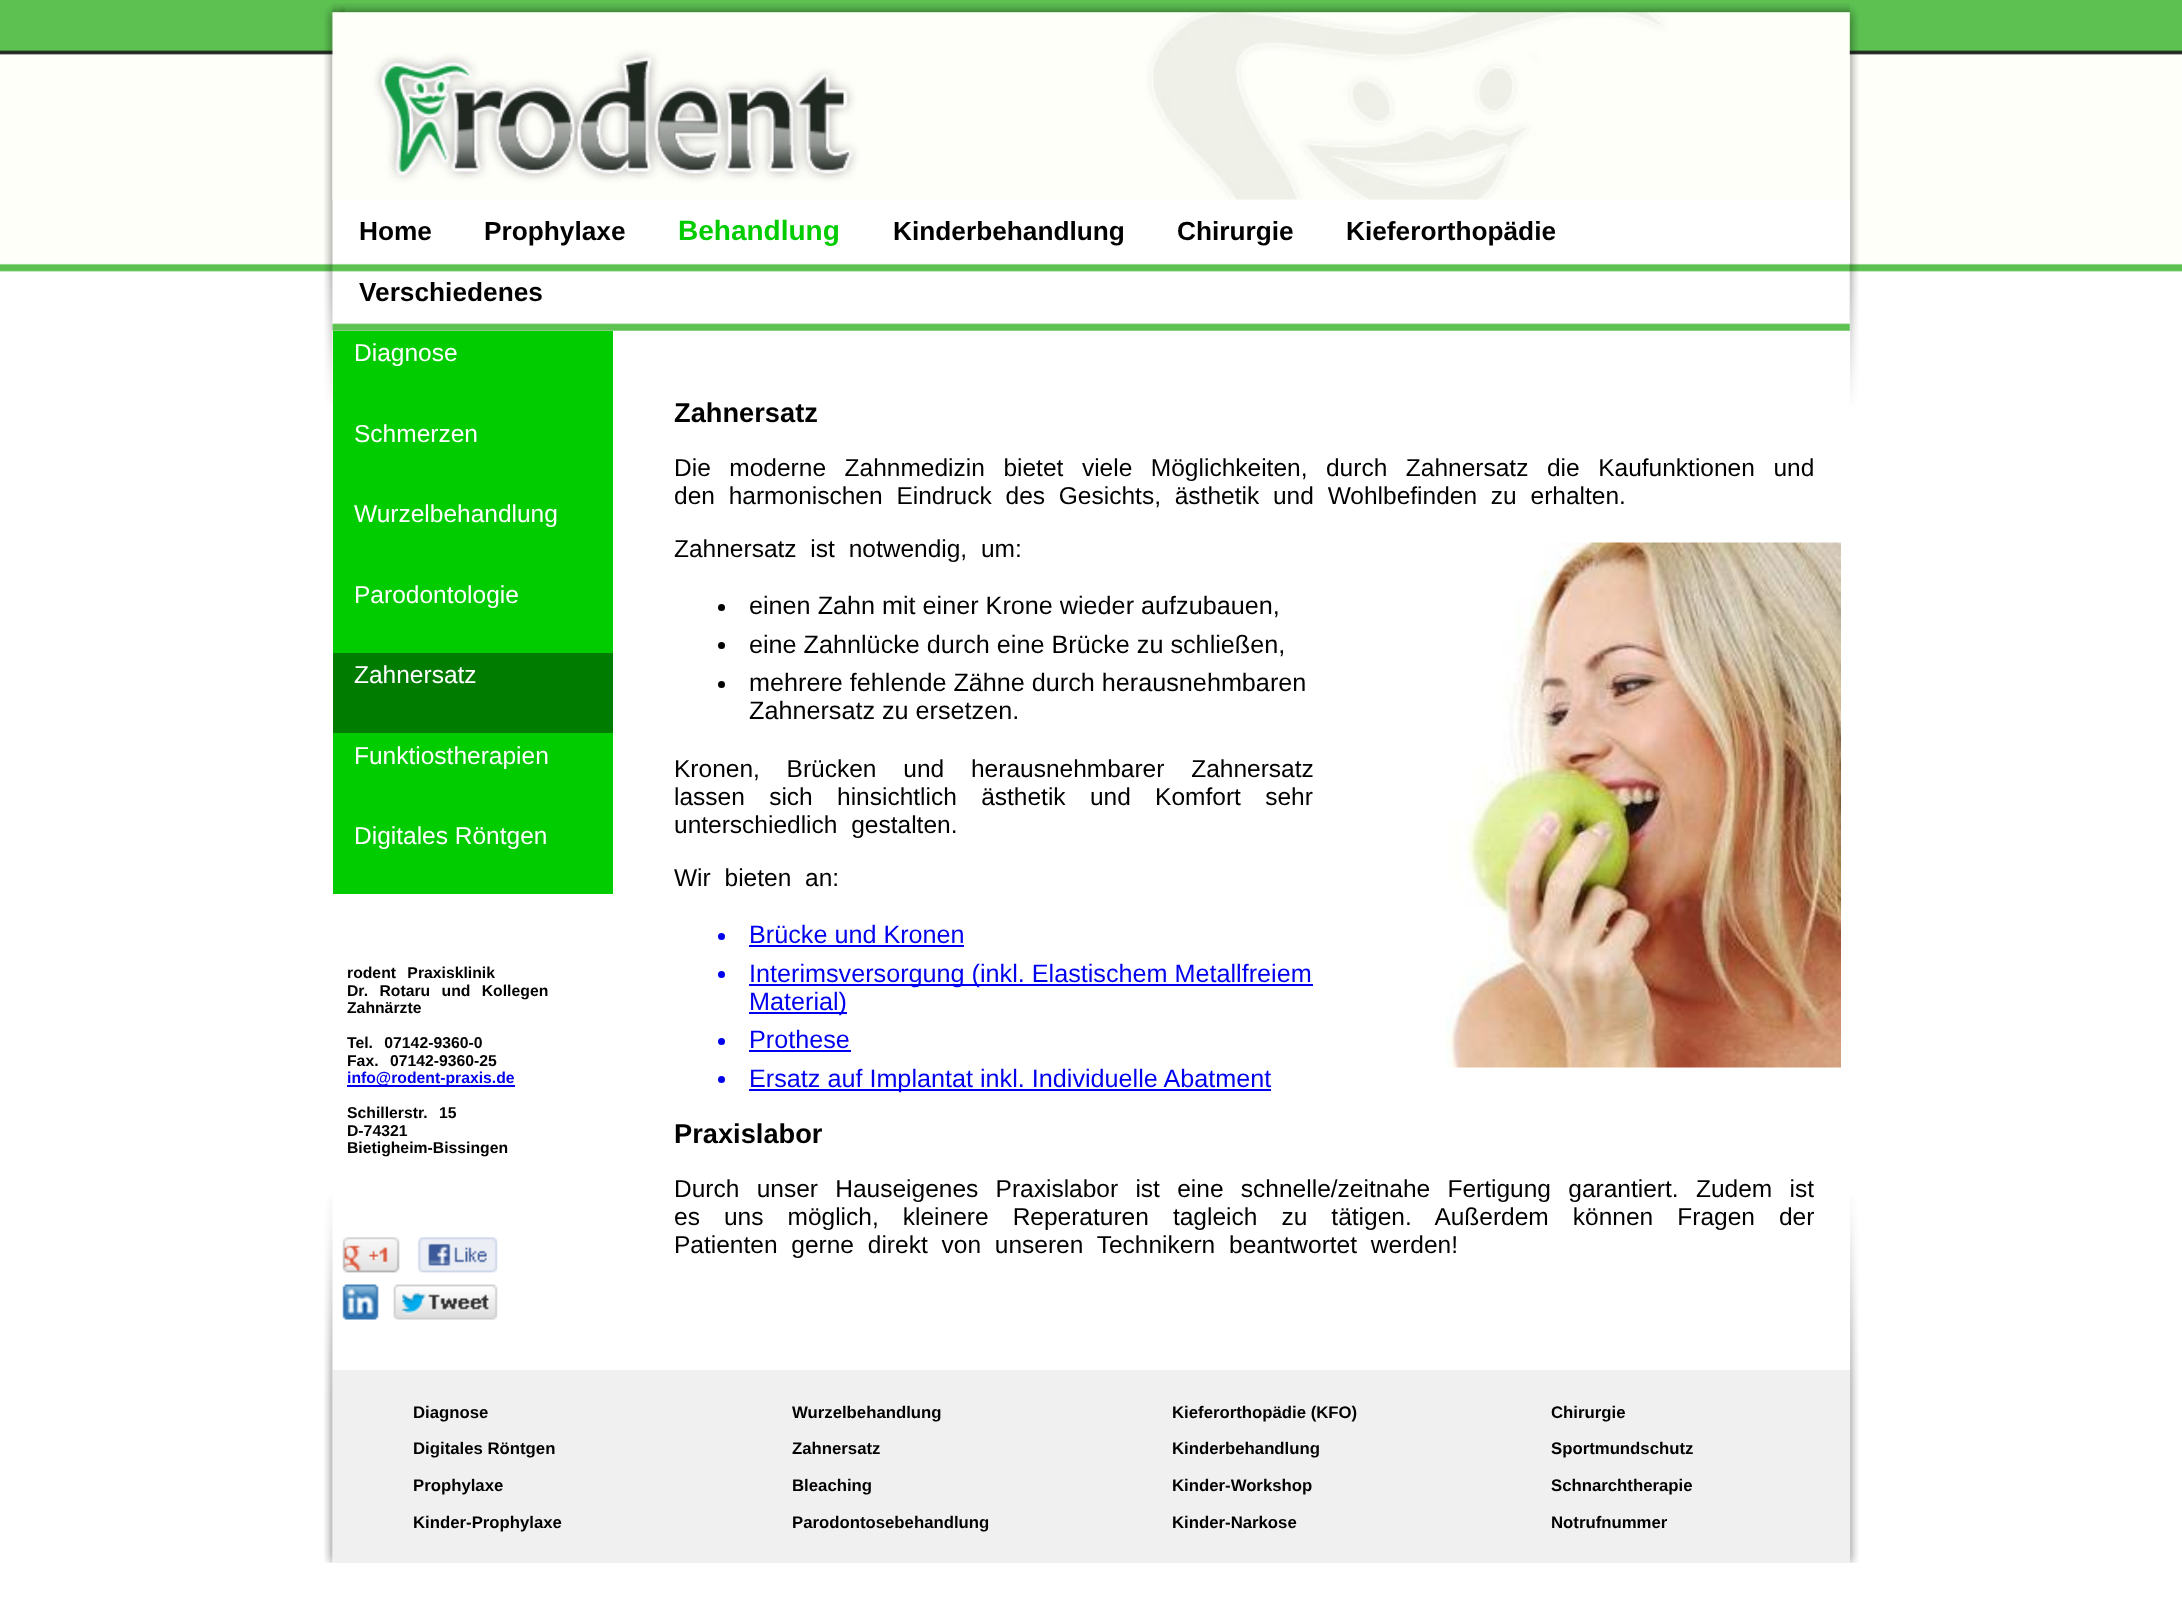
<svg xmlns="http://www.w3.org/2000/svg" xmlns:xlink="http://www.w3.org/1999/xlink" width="2182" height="1619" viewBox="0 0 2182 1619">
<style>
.cls-1{font:bold 26.25px Liberation Sans;fill:#000000}
.cls-2{font:bold 28px Liberation Sans;fill:#00cc00}
.cls-3{font:24.5px Liberation Sans;fill:#ffffff}
.cls-4{font:bold 15.75px Liberation Sans;fill:#000000}
.cls-5{font:bold 15.75px Liberation Sans;fill:#0000ee}
.cls-6{font:bold 27.25px Liberation Sans;fill:#000000}
.cls-7{font:24.5px Liberation Sans;fill:#000000}
.cls-8{font:25.2px Liberation Sans;fill:#000000}
.cls-9{font:25.2px Liberation Sans;fill:#0000ee}
.cls-10{font:bold 16.75px Liberation Sans;fill:#000000}
</style>
<rect width="100%" height="100%" fill="#ffffff"/>
<image xlink:href="image0.png" x="0" y="0" width="2182" height="272"/>
<image xlink:href="image1.png" x="324" y="5" width="1535" height="400"/>
<image xlink:href="image2.png" x="324" y="1197" width="1535" height="366"/>
<image xlink:href="image3.png" x="332" y="3" width="1518" height="10"/>
<image xlink:href="image4.png" x="332" y="12" width="1518" height="188"/>
<image xlink:href="image5.png" x="339" y="5" width="6" height="8"/>
<rect fill="#ffffff" x="333" y="200" width="1517" height="63"/>
<image xlink:href="image6.png" x="332" y="322" width="1518" height="9"/>
<rect fill="#ffffff" x="1849" y="331" width="1" height="1039"/>
<rect fill="#00cc00" x="333" y="331" width="280" height="322"/>
<rect fill="#007c00" x="333" y="653" width="280" height="80"/>
<rect fill="#00cc00" x="333" y="733" width="280" height="161"/>
<rect fill="#0000ee" x="347" y="1085" width="168" height="2"/>
<image xlink:href="image7.png" x="342" y="1237" width="156" height="83"/>
<image xlink:href="image8.png" x="1445" y="542" width="396" height="526"/>
<circle fill="#000000" cx="721.5" cy="607.5" r="3.5"/>
<circle fill="#000000" cx="721.5" cy="645.5" r="3.5"/>
<circle fill="#000000" cx="721.5" cy="684.5" r="3.5"/>
<circle fill="#0000ee" cx="721.5" cy="936.5" r="3.5"/>
<rect fill="#0000ee" x="749" y="945" width="215" height="2"/>
<circle fill="#0000ee" cx="721.5" cy="974.5" r="3.5"/>
<rect fill="#0000ee" x="749" y="984" width="564" height="2"/>
<rect fill="#0000ee" x="749" y="1012" width="98" height="2"/>
<circle fill="#0000ee" cx="721.5" cy="1041.5" r="3.5"/>
<rect fill="#0000ee" x="749" y="1050" width="102" height="2"/>
<circle fill="#0000ee" cx="721.5" cy="1079.5" r="3.5"/>
<rect fill="#0000ee" x="749" y="1089" width="522" height="2"/>
<rect fill="#f0f0f0" x="333" y="1370" width="1517" height="193"/>
<text class="cls-1" x="359" y="240">Home</text>
<text class="cls-1" x="484" y="240">Prophylaxe</text>
<text class="cls-2" x="678" y="240">Behandlung</text>
<text class="cls-1" x="893" y="240">Kinderbehandlung</text>
<text class="cls-1" x="1177" y="240">Chirurgie</text>
<text class="cls-1" x="1346" y="240">Kieferorthopädie</text>
<text class="cls-1" x="359" y="301">Verschiedenes</text>
<text class="cls-3" x="354" y="361">Diagnose</text>
<text class="cls-3" x="354" y="442">Schmerzen</text>
<text class="cls-3" x="354" y="522">Wurzelbehandlung</text>
<text class="cls-3" x="354" y="603">Parodontologie</text>
<text class="cls-3" x="354" y="683">Zahnersatz</text>
<text class="cls-3" x="354" y="764">Funktiostherapien</text>
<text class="cls-3" x="354" y="844">Digitales Röntgen</text>
<text class="cls-4"><tspan x="347" y="978" word-spacing="7">rodent Praxisklinik</tspan><tspan x="347" y="996" word-spacing="7">Dr. Rotaru und Kollegen</tspan><tspan x="347" y="1013">Zahnärzte</tspan></text>
<text class="cls-4"><tspan x="347" y="1048" word-spacing="7">Tel. 07142-9360-0</tspan><tspan x="347" y="1066" word-spacing="7">Fax. 07142-9360-25</tspan></text>
<text class="cls-5" x="347" y="1083">info@rodent-praxis.de</text>
<text class="cls-4"><tspan x="347" y="1118" word-spacing="7">Schillerstr. 15</tspan><tspan x="347" y="1136">D-74321</tspan><tspan x="347" y="1153">Bietigheim-Bissingen</tspan></text>
<text class="cls-6" x="674" y="422">Zahnersatz</text>
<text class="cls-7"><tspan x="674" y="476" word-spacing="11.75">Die moderne Zahnmedizin bietet viele Möglichkeiten, durch Zahnersatz die Kaufunktionen und</tspan><tspan x="674" y="504" word-spacing="7">den harmonischen Eindruck des Gesichts, ästhetik und Wohlbefinden zu erhalten.</tspan></text>
<text class="cls-7" x="674" y="557" word-spacing="7">Zahnersatz ist notwendig, um:</text>
<text class="cls-8"><tspan x="749" y="614">einen Zahn mit einer Krone wieder aufzubauen,</tspan><tspan x="749" y="653">eine Zahnlücke durch eine Brücke zu schließen,</tspan><tspan x="749" y="691">mehrere fehlende Zähne durch herausnehmbaren</tspan><tspan x="749" y="719">Zahnersatz zu ersetzen.</tspan></text>
<text class="cls-7"><tspan x="674" y="777" word-spacing="20">Kronen, Brücken und herausnehmbarer Zahnersatz</tspan><tspan x="674" y="805" word-spacing="17.5">lassen sich hinsichtlich ästhetik und Komfort sehr</tspan><tspan x="674" y="833" word-spacing="7">unterschiedlich gestalten.</tspan></text>
<text class="cls-7" x="674" y="886" word-spacing="7">Wir bieten an:</text>
<text class="cls-9"><tspan x="749" y="943">Brücke und Kronen</tspan><tspan x="749" y="982">Interimsversorgung (inkl. Elastischem Metallfreiem</tspan><tspan x="749" y="1010">Material)</tspan><tspan x="749" y="1048">Prothese</tspan><tspan x="749" y="1087">Ersatz auf Implantat inkl. Individuelle Abatment</tspan></text>
<text class="cls-6" x="674" y="1143">Praxislabor</text>
<text class="cls-7"><tspan x="674" y="1197" word-spacing="10.5">Durch unser Hauseigenes Praxislabor ist eine schnelle/zeitnahe Fertigung garantiert. Zudem ist</tspan><tspan x="674" y="1225" word-spacing="17.25">es uns möglich, kleinere Reperaturen tagleich zu tätigen. Außerdem können Fragen der</tspan><tspan x="674" y="1253" word-spacing="7">Patienten gerne direkt von unseren Technikern beantwortet werden!</tspan></text>
<text class="cls-10" x="413" y="1418">Diagnose</text>
<text class="cls-10" x="413" y="1454">Digitales Röntgen</text>
<text class="cls-10" x="413" y="1491">Prophylaxe</text>
<text class="cls-10" x="413" y="1528">Kinder-Prophylaxe</text>
<text class="cls-10" x="792" y="1418">Wurzelbehandlung</text>
<text class="cls-10" x="792" y="1454">Zahnersatz</text>
<text class="cls-10" x="792" y="1491">Bleaching</text>
<text class="cls-10" x="792" y="1528">Parodontosebehandlung</text>
<text class="cls-10" x="1172" y="1418">Kieferorthopädie (KFO)</text>
<text class="cls-10" x="1172" y="1454">Kinderbehandlung</text>
<text class="cls-10" x="1172" y="1491">Kinder-Workshop</text>
<text class="cls-10" x="1172" y="1528">Kinder-Narkose</text>
<text class="cls-10" x="1551" y="1418">Chirurgie</text>
<text class="cls-10" x="1551" y="1454">Sportmundschutz</text>
<text class="cls-10" x="1551" y="1491">Schnarchtherapie</text>
<text class="cls-10" x="1551" y="1528">Notrufnummer</text>
</svg>
